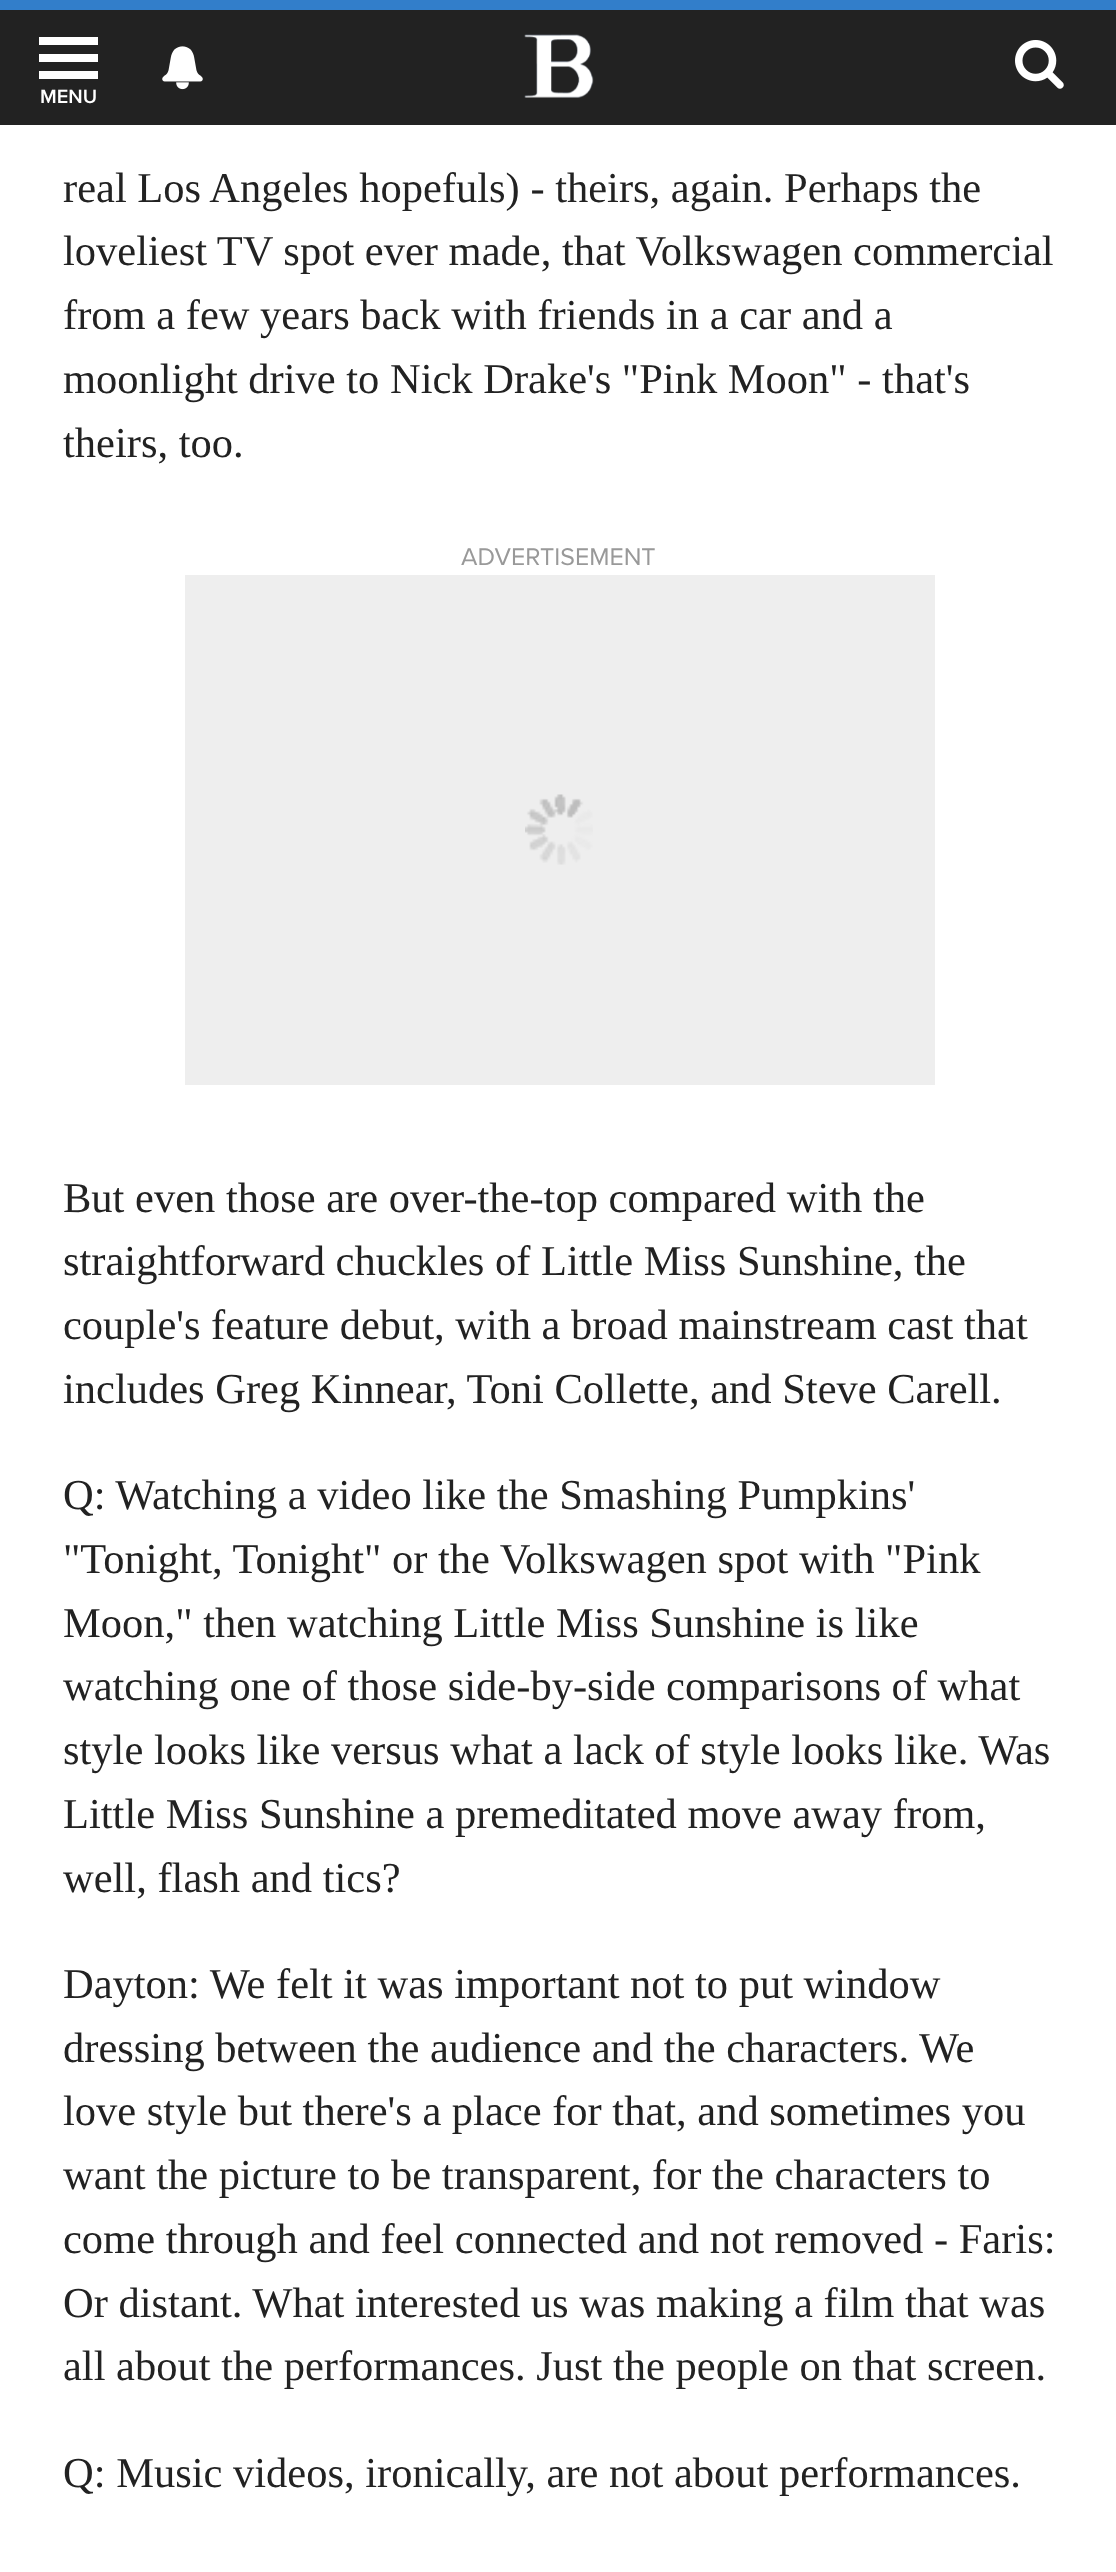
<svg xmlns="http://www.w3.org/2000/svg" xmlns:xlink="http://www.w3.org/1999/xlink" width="1116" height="2572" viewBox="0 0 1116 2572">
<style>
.cls-1{font:600 20px Proxima Nova;fill:#ffffff}
.cls-2{font:42.5px Liberation Serif;fill:#222222}
.cls-3{font:25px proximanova;fill:#999999}
</style>
<rect width="100%" height="100%" fill="#ffffff"/>
<rect fill="#222222" x="0" y="10" width="1116" height="115"/>
<rect fill="#327eca" x="0" y="0" width="1116" height="10"/>
<image xlink:href="image0.png" x="524" y="34" width="70" height="64"/>
<image xlink:href="image1.png" x="1015" y="40" width="49" height="49"/>
<image xlink:href="image2.png" x="162" y="46" width="41" height="44"/>
<path fill="#ffffff" d="M39 37H98V45H39ZM39 54H98V62H39ZM39 71H98V79H39Z"/>
<rect fill="#eeeeee" x="185" y="575" width="750" height="510"/>
<image xlink:href="image3.png" x="525" y="794" width="68" height="71"/>
<text class="cls-1" x="40" y="103">MENU</text>
<text class="cls-2"><tspan x="63" y="202">real Los Angeles hopefuls) - theirs, again. Perhaps the</tspan><tspan x="63" y="265">loveliest TV spot ever made, that Volkswagen commercial</tspan><tspan x="63" y="329">from a few years back with friends in a car and a</tspan><tspan x="63" y="393">moonlight drive to Nick Drake's "Pink Moon" - that's</tspan><tspan x="63" y="457">theirs, too.</tspan></text>
<text class="cls-3" x="461" y="565">ADVERTISEMENT</text>
<text class="cls-2"><tspan x="63" y="1212">But even those are over-the-top compared with the</tspan><tspan x="63" y="1275">straightforward chuckles of Little Miss Sunshine, the</tspan><tspan x="63" y="1339">couple's feature debut, with a broad mainstream cast that</tspan><tspan x="63" y="1403">includes Greg Kinnear, Toni Collette, and Steve Carell.</tspan></text>
<text class="cls-2"><tspan x="63" y="1509">Q: Watching a video like the Smashing Pumpkins'</tspan><tspan x="63" y="1573">"Tonight, Tonight" or the Volkswagen spot with "Pink</tspan><tspan x="63" y="1637">Moon," then watching Little Miss Sunshine is like</tspan><tspan x="63" y="1700">watching one of those side-by-side comparisons of what</tspan><tspan x="63" y="1764">style looks like versus what a lack of style looks like. Was</tspan><tspan x="63" y="1828">Little Miss Sunshine a premeditated move away from,</tspan><tspan x="63" y="1892">well, flash and tics?</tspan></text>
<text class="cls-2"><tspan x="63" y="1998">Dayton: We felt it was important not to put window</tspan><tspan x="63" y="2062">dressing between the audience and the characters. We</tspan><tspan x="63" y="2125">love style but there's a place for that, and sometimes you</tspan><tspan x="63" y="2189">want the picture to be transparent, for the characters to</tspan><tspan x="63" y="2253">come through and feel connected and not removed - Faris:</tspan><tspan x="63" y="2317">Or distant. What interested us was making a film that was</tspan><tspan x="63" y="2380">all about the performances. Just the people on that screen.</tspan></text>
<text class="cls-2" x="63" y="2487">Q: Music videos, ironically, are not about performances.</text>
</svg>
